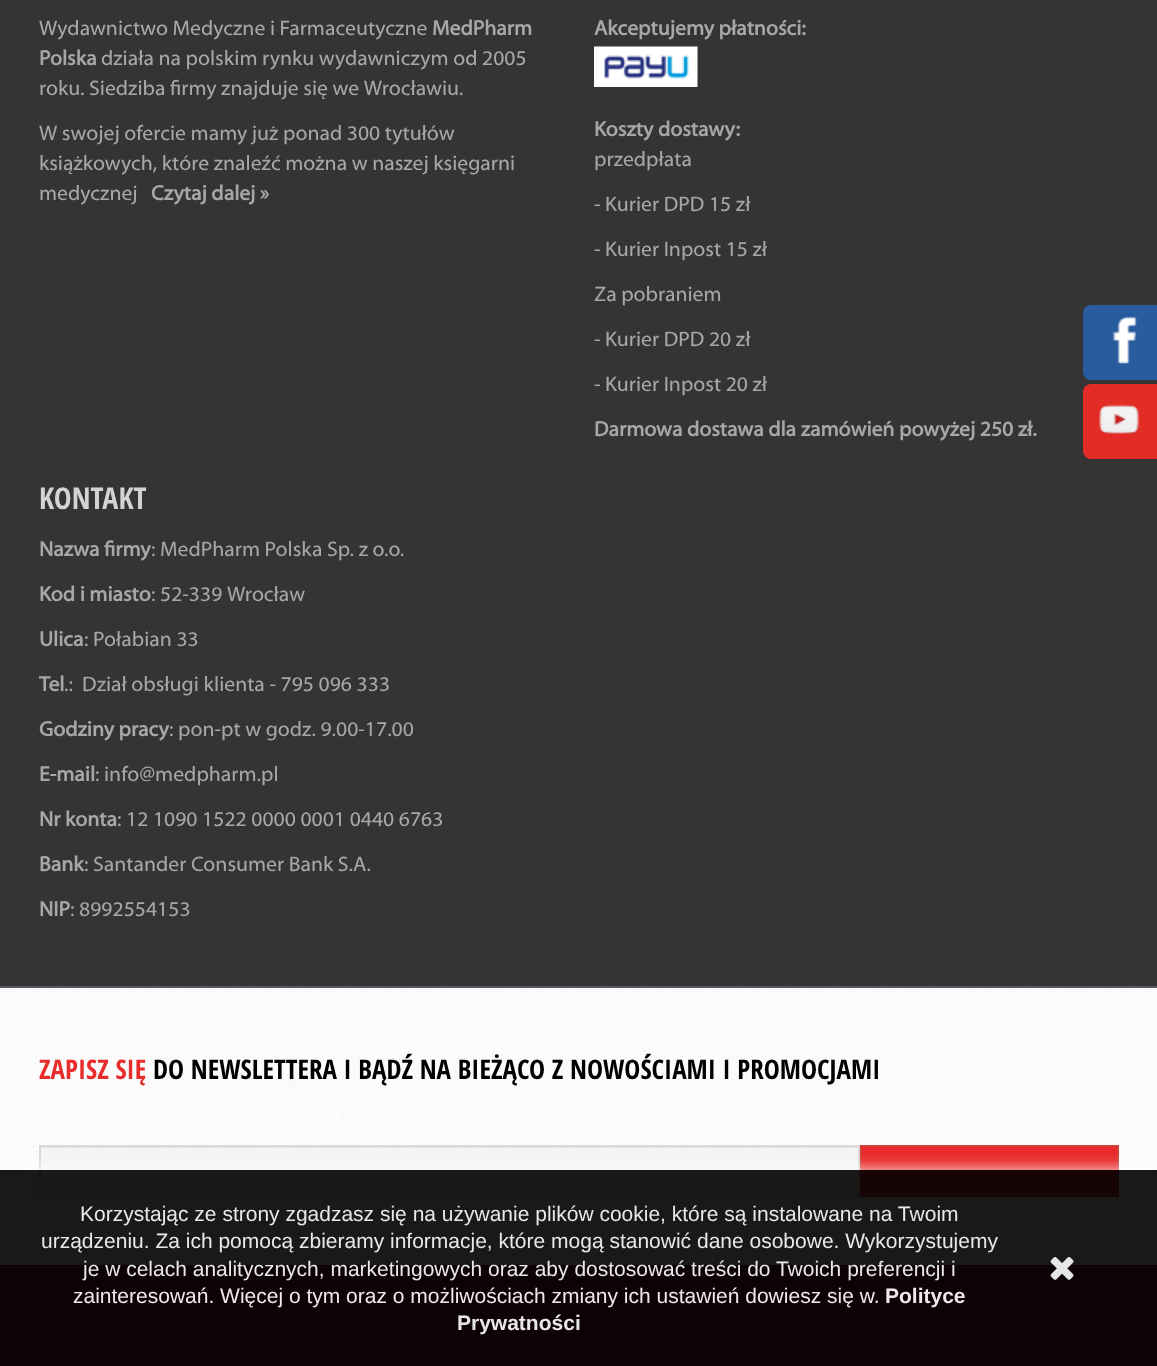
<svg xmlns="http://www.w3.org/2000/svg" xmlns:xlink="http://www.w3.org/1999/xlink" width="1157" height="1366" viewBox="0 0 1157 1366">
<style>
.cls-1{font:21px Myriad;fill:#a7a7a7}
.cls-2{font:bold 21px Myriad;fill:#a7a7a7}
.cls-3{font:bold 30px Open Sans Condensed;fill:#d3d3d3}
.cls-4{font:bold 27px Open Sans Condensed;fill:#e82c2c}
.cls-5{font:bold 27px Open Sans Condensed;fill:#000000}
.cls-6{font:21px Liberation Sans;fill:#e8e8e8}
.cls-7{font:21px Liberation Sans;fill:#f2e8ec}
.cls-8{font:bold 21px Liberation Sans;fill:#f2e8ec}
.cls-9{font:bold 21px Liberation Sans;fill:#e8e8e8}
</style>
<defs>
<clipPath id="clip1"><rect x="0" y="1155" width="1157" height="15"/></clipPath>
</defs>
<rect width="100%" height="100%" fill="#ffffff"/>
<image xlink:href="image0.png" x="0" y="988" width="1157" height="277"/>
<rect fill="#343434" x="0" y="0" width="1157" height="986"/>
<rect fill="#505862" x="0" y="986" width="1157" height="2"/>
<image xlink:href="image1.png" x="594" y="46" width="104" height="41"/>
<rect fill="#f4f4f4" x="41" y="1148" width="817" height="47"/>
<rect fill="#e2e2e2" x="41" y="1147" width="817" height="1"/>
<rect fill="none" stroke="#d9d9d9" stroke-width="2" x="40" y="1146" width="819" height="50"/>
<rect fill="#e82c2c" stroke="#d43f3a" stroke-width="2" x="861" y="1146" width="257" height="50"/>
<rect fill="#811b3c" x="0" y="1265" width="1157" height="101"/>
<g clip-path="url(#clip1)">
<rect fill="#ffffff" fill-opacity="0.9" filter="blur(7.5px)" x="0" y="1170" width="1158" height="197"/>
</g>
<rect fill="#000000" fill-opacity="0.9" x="0" y="1170" width="1157" height="196"/>
<image xlink:href="image2.png" x="1050" y="1257" width="24" height="23"/>
<rect fill="#295c9e" x="1083" y="305" width="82" height="75" rx="8"/>
<image xlink:href="image3.png" x="1111" y="315" width="26" height="49"/>
<rect fill="#e32c26" x="1083" y="384" width="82" height="75" rx="8"/>
<image xlink:href="image4.png" x="1099" y="404" width="41" height="31"/>
<text class="cls-1" x="39" y="35">Wydawnictwo Medyczne i Farmaceutyczne</text>
<text class="cls-2" x="432" y="35">MedPharm</text>
<text class="cls-2" x="39" y="65">Polska</text>
<text class="cls-1" x="101" y="65">działa na polskim rynku wydawniczym od 2005</text>
<text class="cls-1" x="39" y="95">roku. Siedziba firmy znajduje się we Wrocławiu.</text>
<text class="cls-1"><tspan x="39" y="140">W swojej ofercie mamy już ponad 300 tytułów</tspan><tspan x="39" y="170">książkowych, które znaleźć można w naszej księgarni</tspan><tspan x="39" y="200">medycznej</tspan></text>
<text class="cls-2" x="151" y="200">Czytaj dalej »</text>
<text class="cls-2" x="594" y="35">Akceptujemy płatności:</text>
<text class="cls-2" x="594" y="136">Koszty dostawy:</text>
<text class="cls-1" x="594" y="166">przedpłata</text>
<text class="cls-1" x="594" y="211">- Kurier DPD 15 zł</text>
<text class="cls-1" x="594" y="256">- Kurier Inpost 15 zł</text>
<text class="cls-1" x="594" y="301">Za pobraniem</text>
<text class="cls-1" x="594" y="346">- Kurier DPD 20 zł</text>
<text class="cls-1" x="594" y="391">- Kurier Inpost 20 zł</text>
<text class="cls-2" x="594" y="436">Darmowa dostawa dla zamówień powyżej 250 zł.</text>
<text class="cls-3" x="39" y="509">KONTAKT</text>
<text class="cls-2" x="39" y="556">Nazwa firmy</text>
<text class="cls-1" x="151" y="556">: MedPharm Polska Sp. z o.o.</text>
<text class="cls-2" x="39" y="601">Kod i miasto</text>
<text class="cls-1" x="151" y="601">: 52-339 Wrocław</text>
<text class="cls-2" x="39" y="646">Ulica</text>
<text class="cls-1" x="84" y="646">: Połabian 33</text>
<text class="cls-2" x="39" y="691">Tel</text>
<text class="cls-1" xml:space="preserve" x="64" y="691">.:  Dział obsługi klienta - 795 096 333</text>
<text class="cls-2" x="39" y="736">Godziny pracy</text>
<text class="cls-1" x="169" y="736">: pon-pt w godz. 9.00-17.00</text>
<text class="cls-2" x="39" y="781">E-mail</text>
<text class="cls-1" x="95" y="781">: info@medpharm.pl</text>
<text class="cls-2" x="39" y="826">Nr konta</text>
<text class="cls-1" x="117" y="826">: 12 1090 1522 0000 0001 0440 6763</text>
<text class="cls-2" x="39" y="871">Bank</text>
<text class="cls-1" x="84" y="871">: Santander Consumer Bank S.A.</text>
<text class="cls-2" x="39" y="916">NIP</text>
<text class="cls-1" x="70" y="916">: 8992554153</text>
<text class="cls-4" x="39" y="1079">ZAPISZ SIĘ</text>
<text class="cls-5" x="153" y="1079">DO NEWSLETTERA I BĄDŹ NA BIEŻĄCO Z NOWOŚCIAMI I PROMOCJAMI</text>
<text class="cls-6" x="80" y="1221">Korzystając ze strony zgadzasz się na używanie plików cookie, które są instalowane na Twoim</text>
<text class="cls-6" x="41" y="1248">urządzeniu. Za ich pomocą zbieramy informacje, które mogą stanowić dane osobowe. Wykorzystujemy</text>
<text class="cls-6" x="83" y="1276">je w celach analitycznych, marketingowych oraz aby dostosować treści do Twoich preferencji i</text>
<text class="cls-7" x="73" y="1303">zainteresowań. Więcej o tym oraz o możliwościach zmiany ich ustawień dowiesz się w.</text>
<text class="cls-8" x="885" y="1303">Polityce</text>
<text class="cls-9" x="457" y="1330">Prywatności</text>
</svg>
